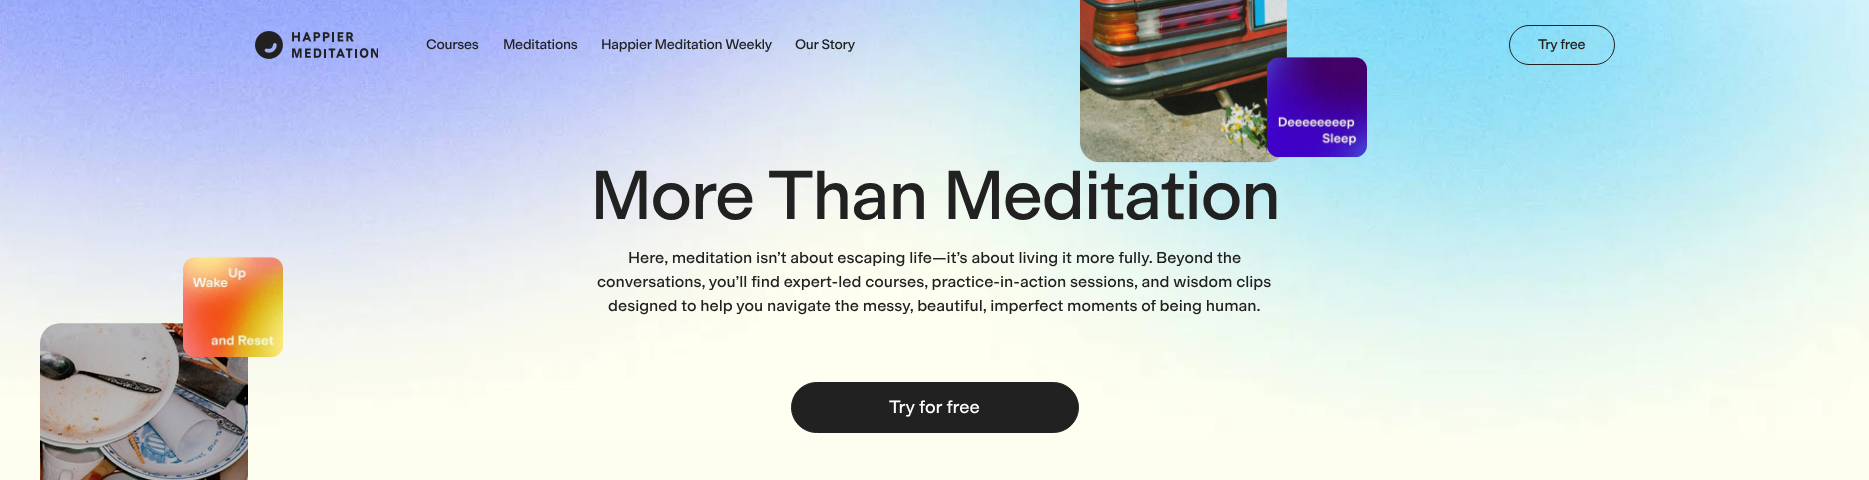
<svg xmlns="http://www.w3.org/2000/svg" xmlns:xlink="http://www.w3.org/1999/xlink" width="1869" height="480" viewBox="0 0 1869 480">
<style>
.cls-1{font:14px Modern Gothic;letter-spacing:-0.25px;fill:#212121}
.cls-2{font:70px Modern Gothic;letter-spacing:-1.4px;fill:#212121}
.cls-3{font:16px Modern Gothic;fill:#212121}
.cls-4{font:18px Modern Gothic;fill:#ffffff}
</style>
<rect width="100%" height="100%" fill="#fefef0"/>
<image xlink:href="image5.png" x="0" y="0" width="1869" height="435"/>
<image xlink:href="image0.png" x="255" y="31" width="123" height="28"/>
<rect fill="none" stroke="#212121" x="1509.5" y="25.5" width="105" height="39" rx="19.5"/>
<image xlink:href="image1.png" x="1080" y="0" width="207" height="163"/>
<image xlink:href="image2.png" x="1267" y="57" width="100" height="101"/>
<image xlink:href="image4.png" x="40" y="323" width="208" height="157"/>
<image xlink:href="image3.png" x="183" y="257" width="100" height="101"/>
<rect fill="#212121" stroke="#212121" x="791.5" y="382.5" width="287" height="50" rx="25"/>
<text class="cls-1" x="426" y="49">Courses</text>
<text class="cls-1" x="503" y="49">Meditations</text>
<text class="cls-1" x="601" y="49">Happier Meditation Weekly</text>
<text class="cls-1" x="795" y="49">Our Story</text>
<text class="cls-1" x="1538" y="49">Try free</text>
<text class="cls-2" x="590" y="219">More Than Meditation</text>
<text class="cls-3" x="628" y="263">Here, meditation isn’t about escaping life—it’s about living it more fully. Beyond the</text>
<text class="cls-3" x="597" y="287">conversations, you’ll find expert-led courses, practice-in-action sessions, and wisdom clips</text>
<text class="cls-3" x="608" y="311">designed to help you navigate the messy, beautiful, imperfect moments of being human.</text>
<text class="cls-4" x="889" y="413">Try for free</text>
</svg>
